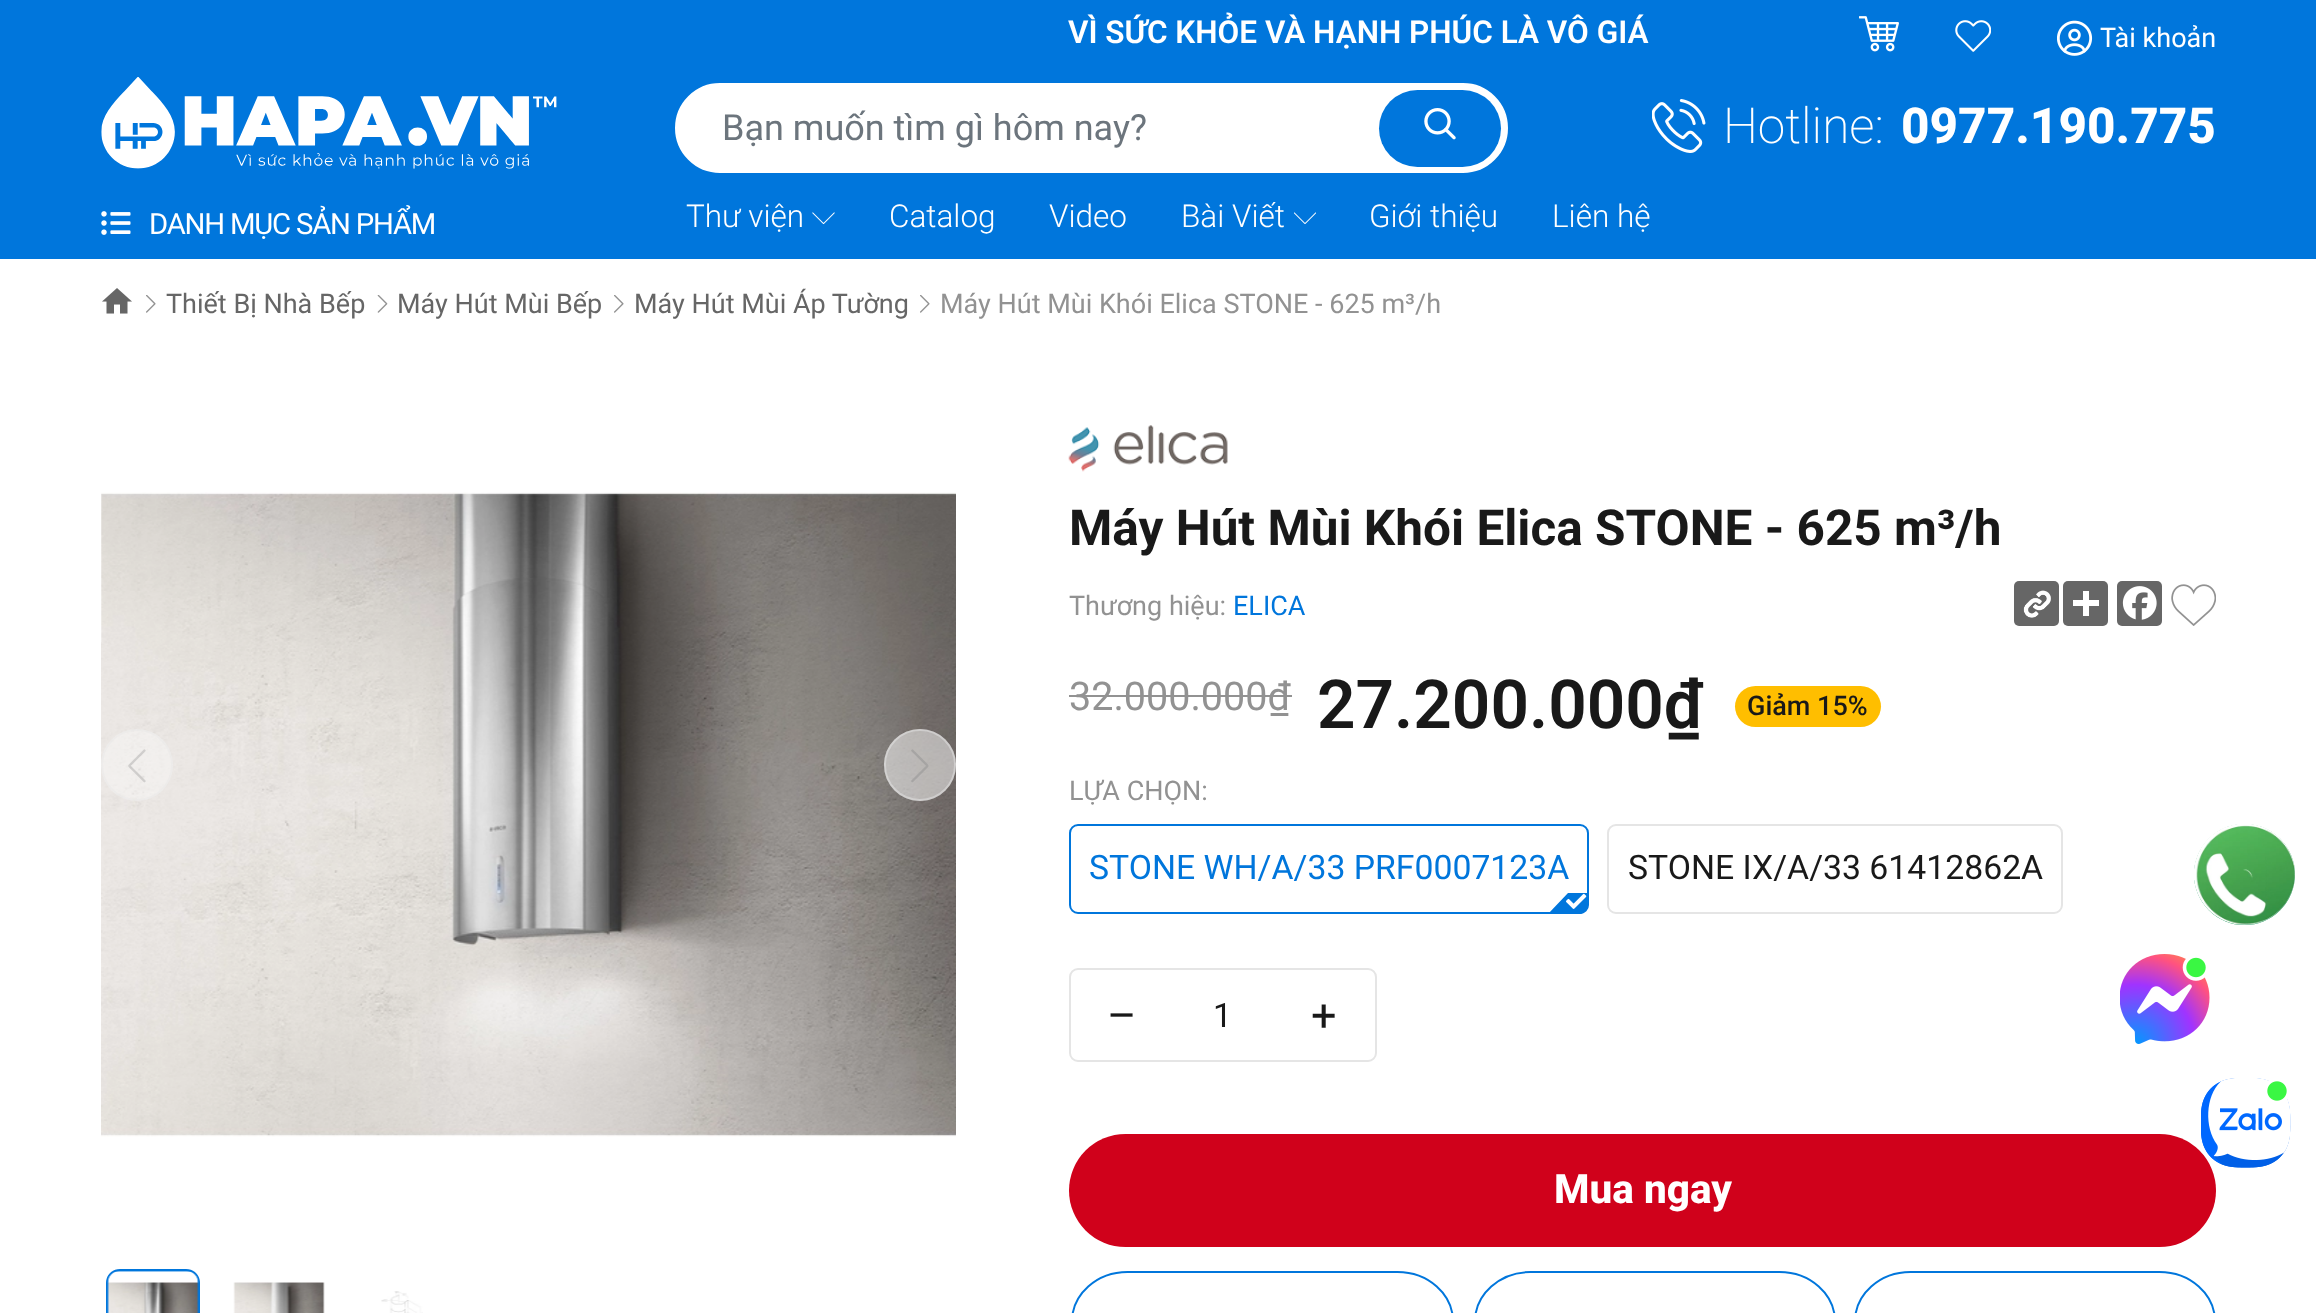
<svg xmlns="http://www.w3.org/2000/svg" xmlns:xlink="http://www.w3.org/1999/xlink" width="2316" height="1313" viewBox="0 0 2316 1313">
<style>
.cls-1{font:600 31.5px Roboto;fill:#ffffff}
.cls-2{font:27px Roboto;fill:#ffffff}
.cls-3{font:36px Roboto;fill:#6c757d}
.cls-4{font:200 49.5px Roboto;fill:#ffffff}
.cls-5{font:800 49.5px Roboto;fill:#ffffff}
.cls-6{font:29.25px Roboto;letter-spacing:-1.2px;fill:#ffffff}
.cls-7{font:300 31.5px Roboto;fill:#ffffff}
.cls-8{font:27px Roboto;fill:#666666}
.cls-9{font:27px Roboto;fill:#929292}
.cls-10{font:bold 49.5px Roboto;fill:#191919}
.cls-11{font:27px Roboto;fill:#0076dc}
.cls-12{font:39.5px Roboto;fill:#929292}
.cls-13{font:600 67.5px Roboto;fill:#191919}
.cls-14{font:500 27px Roboto;fill:#191919}
.cls-15{font:33.75px Roboto;fill:#0076dc}
.cls-16{font:33.75px Roboto;fill:#191919}
.cls-17{font:45px Roboto;fill:#191919}
.cls-18{font:800 40.5px Roboto;fill:#ffffff}
</style>
<rect width="100%" height="100%" fill="#ffffff"/>
<rect fill="#0076dc" x="0" y="0" width="2316" height="259"/>
<image xlink:href="image0.png" x="1859" y="16" width="40" height="36"/>
<image xlink:href="image1.png" x="1955" y="20" width="36" height="32"/>
<image xlink:href="image2.png" x="2057" y="20" width="36" height="36"/>
<image xlink:href="image3.png" x="101" y="77" width="456" height="92"/>
<rect fill="#ffffff" stroke="#ffffff" stroke-width="2" x="676" y="84" width="831" height="88" rx="44"/>
<rect fill="#0076dc" x="1379" y="90" width="122" height="77" rx="38.5"/>
<image xlink:href="image4.png" x="1424" y="108" width="32" height="32"/>
<image xlink:href="image5.png" x="1652" y="99" width="54" height="54"/>
<image xlink:href="image6.png" x="101" y="211" width="30" height="24"/>
<image xlink:href="image7.png" x="812" y="212" width="23" height="13"/>
<image xlink:href="image8.png" x="1294" y="212" width="22" height="12"/>
<image xlink:href="image9.png" x="102" y="288" width="30" height="26"/>
<image xlink:href="image10.png" x="146" y="295" width="10" height="18"/>
<image xlink:href="image11.png" x="377" y="295" width="11" height="18"/>
<image xlink:href="image10.png" x="614" y="295" width="10" height="18"/>
<image xlink:href="image10.png" x="920" y="295" width="10" height="18"/>
<image xlink:href="image12.png" x="101" y="492" width="855" height="645"/>
<circle fill="#ffffff" fill-opacity="0.35" cx="137" cy="765" r="36"/>
<circle fill="none" stroke="#e5e5e6" stroke-opacity="0.35" stroke-width="2" cx="137" cy="765" r="35"/>
<image xlink:href="image13.png" x="128" y="749" width="18" height="34"/>
<circle fill="#ffffff" fill-opacity="0.5" cx="920" cy="765" r="36"/>
<circle fill="none" stroke="#e5e5e6" stroke-opacity="0.5" stroke-width="2" cx="920" cy="765" r="35"/>
<image xlink:href="image14.png" x="911" y="749" width="18" height="34"/>
<path fill="#0076dc" d="M120 1269C112 1269 106 1275 106 1283V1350C106 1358 112 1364 120 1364H186C194 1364 200 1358 200 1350V1283C200 1275 194 1269 186 1269Z"/>
<image xlink:href="image15.png" x="107" y="1271" width="92" height="42"/>
<image xlink:href="image16.png" x="233" y="1282" width="92" height="31"/>
<image xlink:href="image17.png" x="381" y="1291" width="42" height="22"/>
<image xlink:href="image18.png" x="1068" y="425" width="160" height="47"/>
<rect fill="#666666" x="2014" y="581" width="45" height="45" rx="5"/>
<image xlink:href="image19.png" x="2023" y="590" width="28" height="28"/>
<rect fill="#666666" x="2063" y="581" width="45" height="45" rx="5"/>
<rect fill="#ffffff" x="2083" y="591" width="6" height="25"/>
<rect fill="#ffffff" x="2073" y="600" width="26" height="6"/>
<rect fill="#666666" x="2117" y="581" width="45" height="45" rx="5"/>
<image xlink:href="image20.png" x="2122" y="586" width="35" height="34"/>
<image xlink:href="image21.png" x="2171" y="584" width="45" height="42"/>
<rect fill="#929292" x="1069" y="695" width="223" height="2"/>
<rect fill="#ffbe00" x="1735" y="686" width="146" height="41" rx="20.5"/>
<rect fill="none" stroke="#0076dc" stroke-width="2" x="1070" y="825" width="518" height="88" rx="8"/>
<path fill="#0076dc" d="M1581 914H1548L1568 893H1588C1588 900 1590 911 1581 914Z"/>
<image xlink:href="image22.png" x="1566" y="893" width="21" height="16"/>
<rect fill="none" stroke="#e5e5e5" stroke-width="2" x="1608" y="825" width="454" height="88" rx="8"/>
<rect fill="none" stroke="#e5e5e5" stroke-width="2" x="1070" y="969" width="306" height="92" rx="8"/>
<rect fill="#d0011b" x="1069" y="1134" width="1147" height="113" rx="56.5"/>
<rect fill="none" stroke="#0076dc" stroke-width="2" x="1072" y="1272" width="381" height="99" rx="55.5"/>
<rect fill="none" stroke="#0076dc" stroke-width="2" x="1475" y="1272" width="360" height="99" rx="55.5"/>
<rect fill="none" stroke="#0076dc" stroke-width="2" x="1855" y="1272" width="360" height="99" rx="55.5"/>
<circle fill="#008749" cx="2244.5" cy="874.5" r="50.5"/>
<image xlink:href="image23.png" x="2194" y="824" width="101" height="101"/>
<image xlink:href="image24.png" x="2120" y="954" width="90" height="90"/>
<image xlink:href="image25.png" x="2201" y="1078" width="90" height="90"/>
<image xlink:href="image26.png" x="2201" y="1078" width="90" height="90"/>
<text class="cls-1" x="1068" y="43">VÌ SỨC KHỎE VÀ HẠNH PHÚC LÀ VÔ GIÁ</text>
<text class="cls-2" x="2100" y="47">Tài khoản</text>
<text class="cls-3" x="722" y="140">Bạn muốn tìm gì hôm nay?</text>
<text class="cls-4" x="1723" y="143">Hotline:</text>
<text class="cls-5" x="1901" y="143">0977.190.775</text>
<text class="cls-6" x="149" y="234">DANH MỤC SẢN PHẨM</text>
<text class="cls-7" x="686" y="227">Thư viện</text>
<text class="cls-7" x="889" y="227">Catalog</text>
<text class="cls-7" x="1049" y="227">Video</text>
<text class="cls-7" x="1181" y="227">Bài Viết</text>
<text class="cls-7" x="1369" y="227">Giới thiệu</text>
<text class="cls-7" x="1552" y="227">Liên hệ</text>
<text class="cls-8" x="166" y="313">Thiết Bị Nhà Bếp</text>
<text class="cls-8" x="397" y="313">Máy Hút Mùi Bếp</text>
<text class="cls-8" x="634" y="313">Máy Hút Mùi Áp Tường</text>
<text class="cls-9" x="940" y="313">Máy Hút Mùi Khói Elica STONE - 625 m³/h</text>
<text class="cls-10" x="1069" y="545">Máy Hút Mùi Khói Elica STONE - 625 m³/h</text>
<text class="cls-9" x="1069" y="615">Thương hiệu:</text>
<text class="cls-11" x="1233" y="615">ELICA</text>
<text class="cls-12" x="1069" y="710">32.000.000₫</text>
<text class="cls-13" x="1317" y="728">27.200.000₫</text>
<text class="cls-14" x="1747" y="715">Giảm 15%</text>
<text class="cls-9" x="1069" y="800">LỰA CHỌN:</text>
<text class="cls-15" x="1089" y="879">STONE WH/A/33 PRF0007123A</text>
<text class="cls-16" x="1628" y="879">STONE IX/A/33 61412862A</text>
<text class="cls-17" x="1107" y="1031">–</text>
<text class="cls-16" x="1213" y="1027">1</text>
<text class="cls-17" x="1311" y="1031">+</text>
<text class="cls-18" x="1554" y="1203">Mua ngay</text>
</svg>
